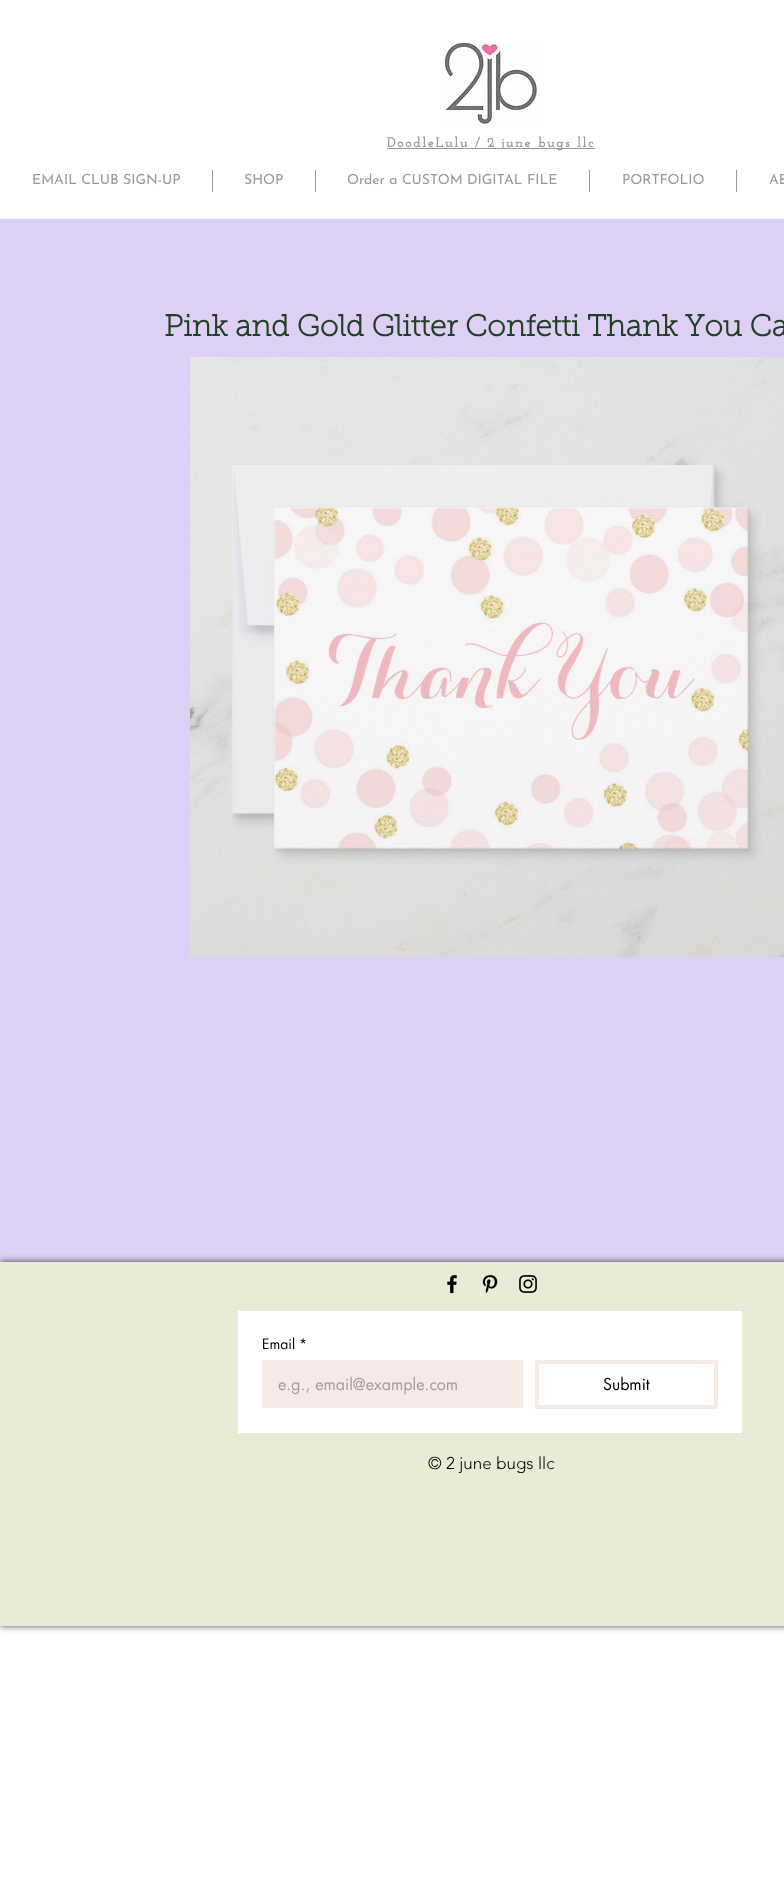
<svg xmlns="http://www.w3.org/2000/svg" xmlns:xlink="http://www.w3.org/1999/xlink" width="784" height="1882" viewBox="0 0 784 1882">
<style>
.cls-1{font:bold 14px Josefin Slab;letter-spacing:1.4px;fill:#999997}
.cls-2{font:100 14px Josefin Sans;fill:#999997}
.cls-3{font:bold 30px 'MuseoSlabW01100';fill:#203f24}
.cls-4{font:14px futura;fill:#000000}
.cls-5{font:16px futura;fill:#a89d96}
.cls-6{font:16px futura;fill:#000000}
.cls-7{font:300 17px 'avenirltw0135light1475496';fill:#000000}
</style>
<rect width="100%" height="100%" fill="#ffffff"/>
<image xlink:href="image0.png" x="444" y="42" width="96" height="84"/>
<rect fill="#999997" x="387" y="148" width="208" height="1"/>
<rect fill="#999997" x="212" y="170" width="1" height="22"/>
<rect fill="#999997" x="315" y="170" width="1" height="22"/>
<rect fill="#999997" x="589" y="170" width="1" height="22"/>
<rect fill="#999997" x="736" y="170" width="1" height="22"/>
<rect fill="#ded0f5" x="0" y="219" width="784" height="1043"/>
<image xlink:href="image1.png" x="190" y="357" width="594" height="600"/>
<rect fill="#000000" fill-opacity="0.7" filter="blur(3.5px)" x="0" y="1262" width="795" height="364"/>
<rect fill="#e7ecd7" x="0" y="1262" width="784" height="364"/>
<image xlink:href="image2.png" x="447" y="1274" width="10" height="20"/>
<image xlink:href="image3.png" x="482" y="1274" width="16" height="19"/>
<image xlink:href="image4.png" x="519" y="1275" width="18" height="18"/>
<rect fill="#ffffff" x="238" y="1311" width="504" height="122"/>
<rect fill="#f6ebe4" x="262" y="1360" width="261" height="48"/>
<rect fill="none" stroke="#f6ebe4" stroke-width="4" x="537" y="1362" width="179" height="45"/>
<text class="cls-1" x="387" y="147">DoodleLulu / 2 june bugs llc</text>
<text class="cls-2" x="32" y="184">EMAIL CLUB SIGN-UP</text>
<text class="cls-2" x="244" y="184">SHOP</text>
<text class="cls-2" x="347" y="184">Order a CUSTOM DIGITAL FILE</text>
<text class="cls-2" x="622" y="184">PORTFOLIO</text>
<text class="cls-2" x="769" y="184">AB</text>
<text class="cls-3" x="164" y="336">Pink and Gold Glitter Confetti Thank You Ca</text>
<text class="cls-4" x="262" y="1349">Email</text>
<text class="cls-4" x="299" y="1349">*</text>
<text class="cls-5" x="278" y="1390">e.g., email@example.com</text>
<text class="cls-6" x="603" y="1390">Submit</text>
<text class="cls-7" x="428" y="1469">© 2 june bugs llc</text>
</svg>
